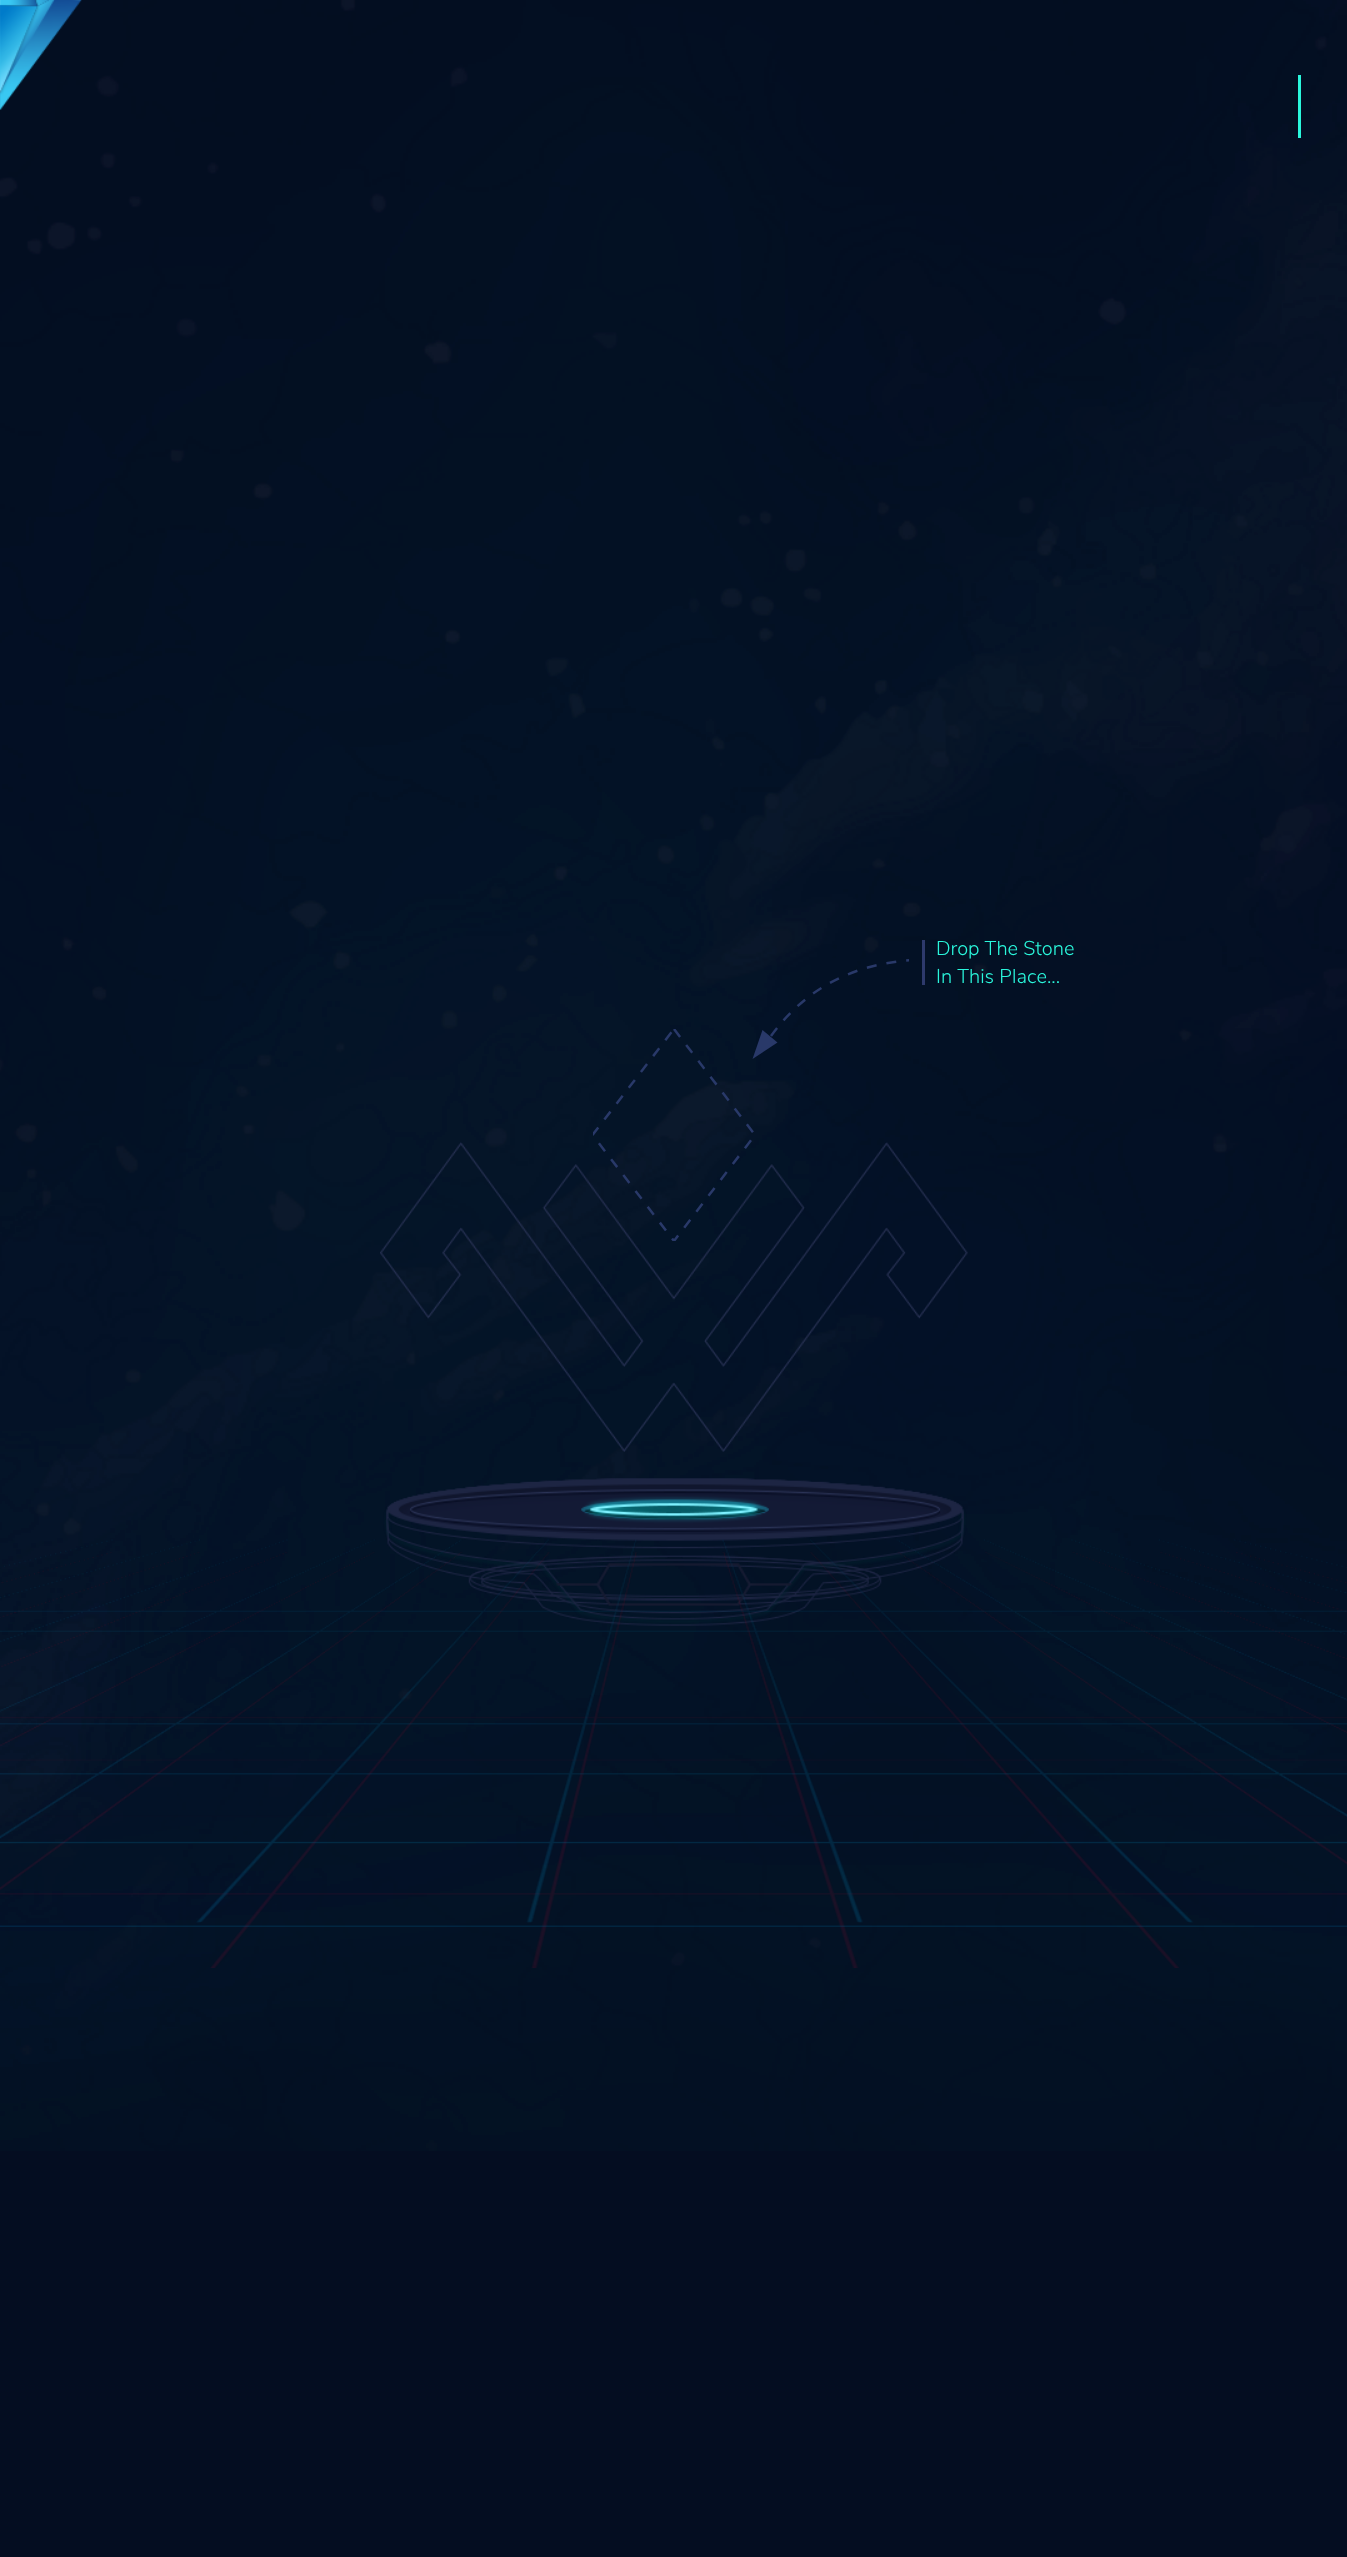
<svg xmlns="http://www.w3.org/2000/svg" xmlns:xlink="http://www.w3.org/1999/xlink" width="1347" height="2557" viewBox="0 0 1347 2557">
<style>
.cls-1{font:300 20px Nunito Sans;fill:#2af7dc}
</style>
<defs>
<clipPath id="clip1"><rect x="746" y="911" width="163" height="150"/></clipPath>
<clipPath id="clip2"><rect x="593" y="1029" width="187" height="212"/></clipPath>
</defs>
<rect width="100%" height="100%" fill="#040d21"/>
<image xlink:href="image0.png" x="0" y="0" width="1347" height="2151"/>
<rect fill="#2af7dc" x="1298" y="75" width="3" height="63"/>
<image xlink:href="image1.png" x="0" y="0" width="82" height="110"/>
<g clip-path="url(#clip1)">
<path fill="none" stroke="#293969" stroke-width="2.5" stroke-dasharray="10 10" d="M771 1036C813 978 875.5 953 959 961"/>
</g>
<g clip-path="url(#clip2)">
<path fill="none" stroke="#293969" stroke-width="2.5" stroke-dasharray="10 10" d="M674 1029L755 1135L674 1241L592.5 1135Z"/>
</g>
<path fill="#293969" d="M762.5 1030L777.5 1042.5L752.5 1059Z"/>
<rect fill="#2e3a6c" x="922" y="940" width="3" height="45"/>
<image xlink:href="image2.png" x="380" y="1142" width="588" height="484"/>
<image xlink:href="image3.png" x="0" y="1539" width="1347" height="429"/>
<text class="cls-1"><tspan x="936" y="955">Drop The Stone</tspan><tspan x="936" y="983">In This Place...</tspan></text>
</svg>
